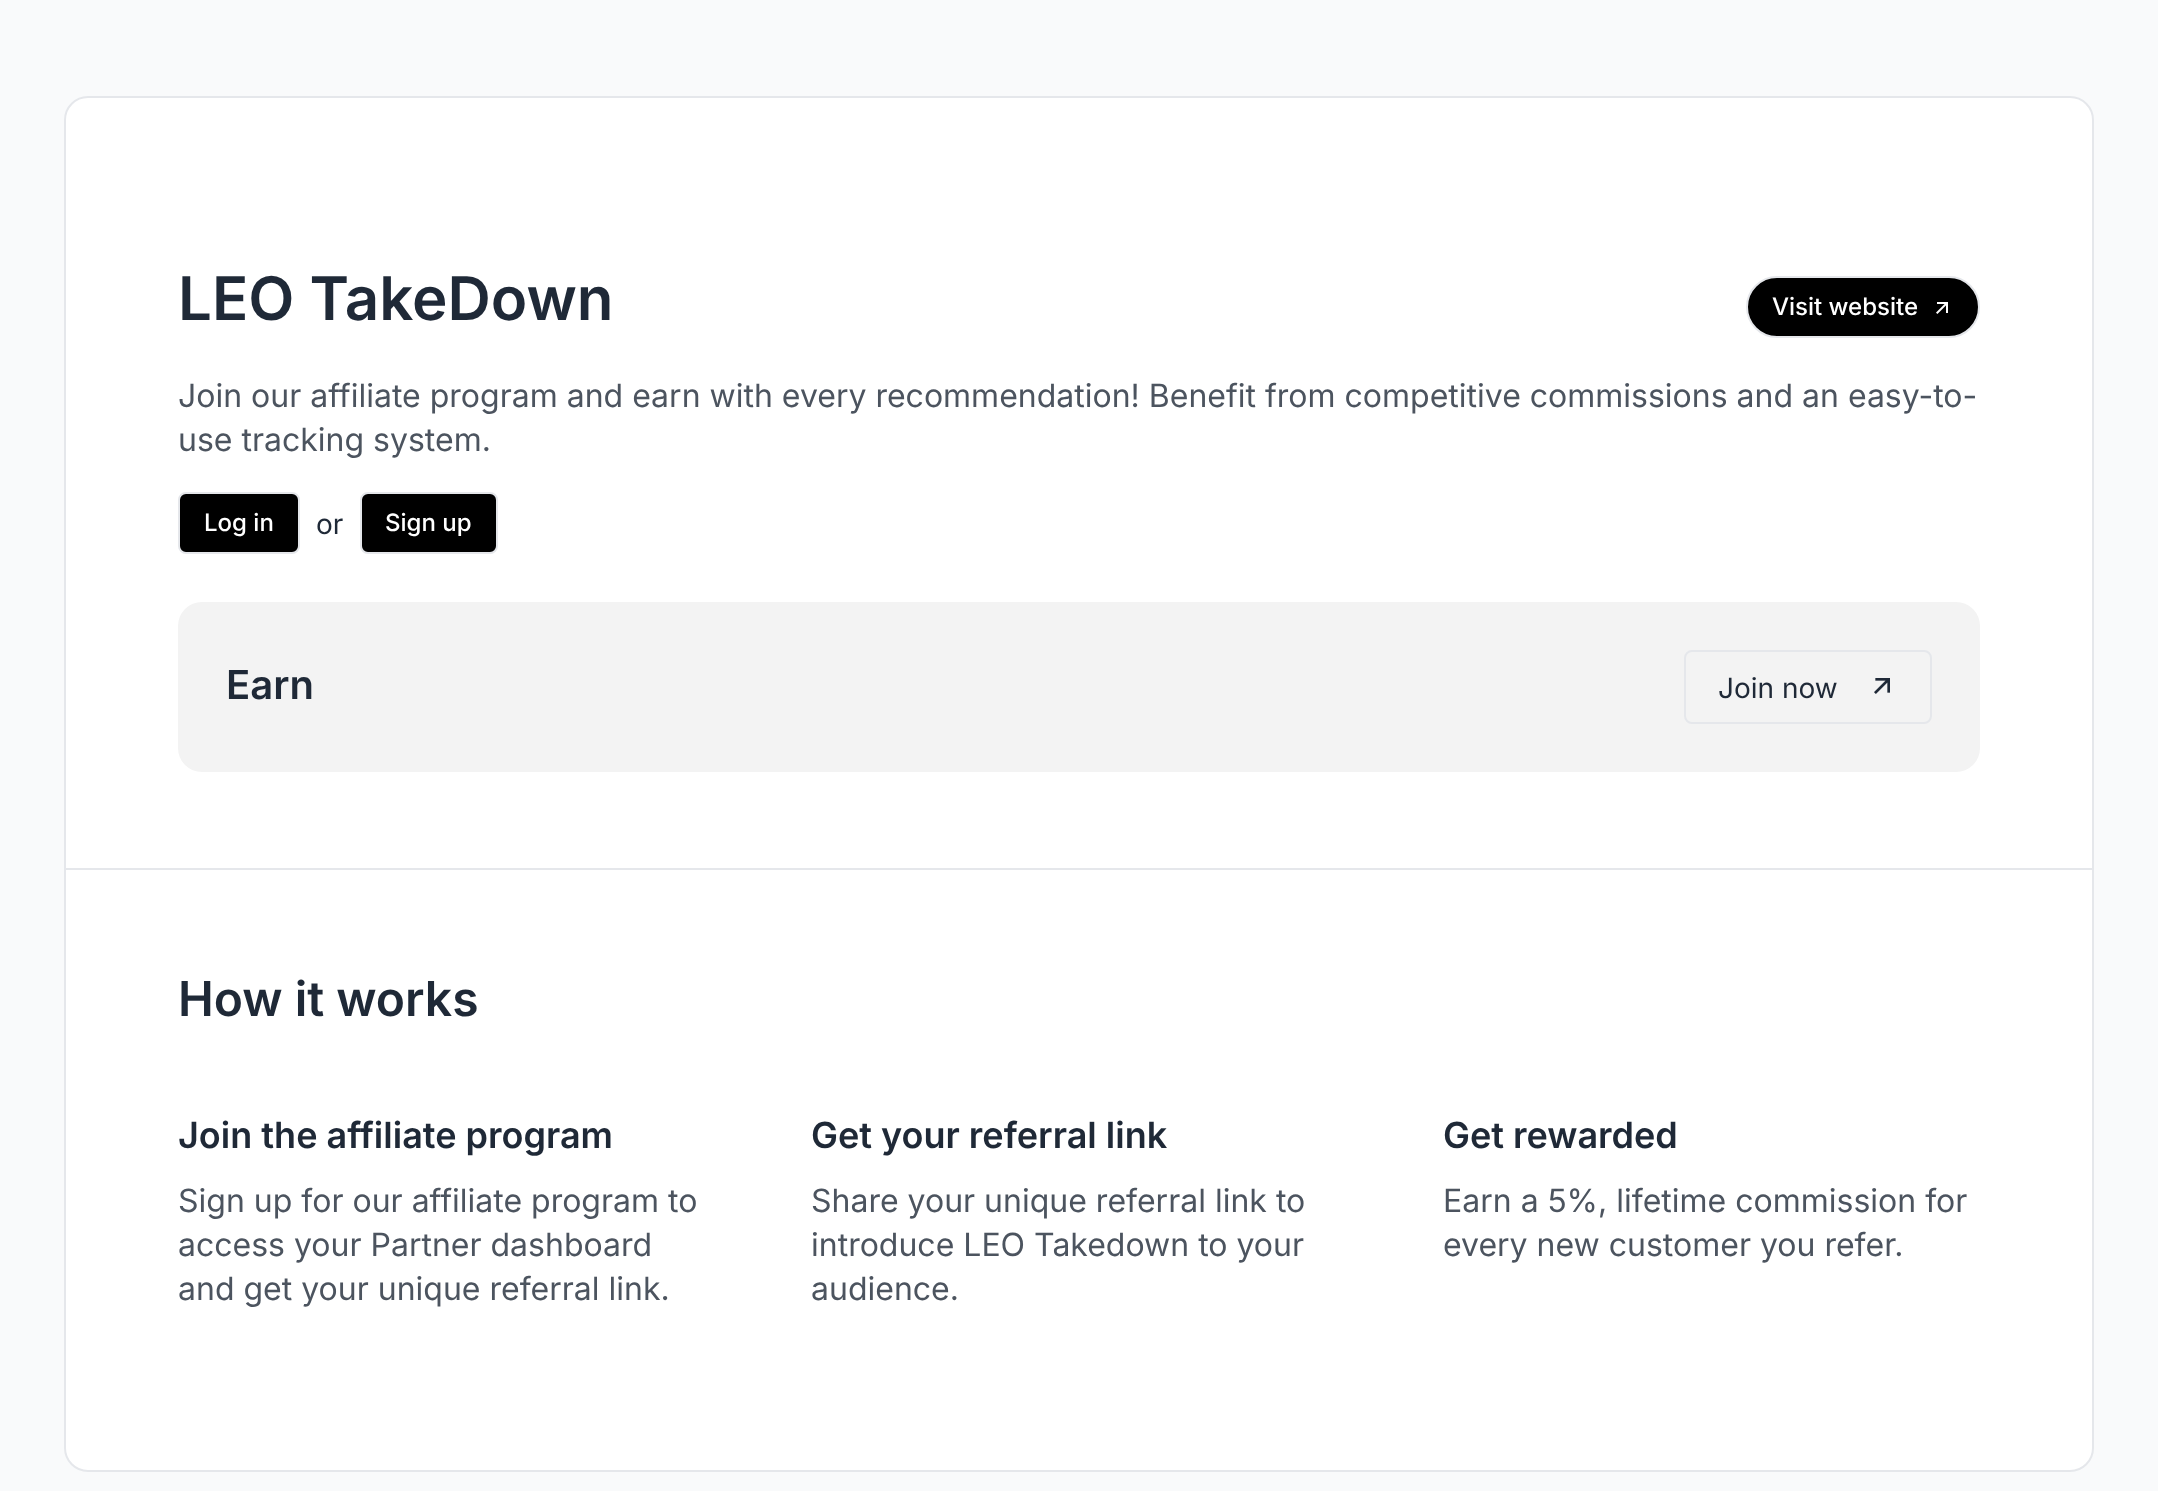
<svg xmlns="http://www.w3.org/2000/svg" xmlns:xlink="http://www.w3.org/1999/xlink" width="2158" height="1491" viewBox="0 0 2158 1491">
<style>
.cls-1{font:600 60px Inter;fill:#1f2937}
.cls-2{font:500 24px Inter;fill:#ffffff}
.cls-3{font:32px Inter;fill:#4c545f}
.cls-4{font:28px Inter;fill:#1f2937}
.cls-5{font:600 40px Inter;fill:#1f2937}
.cls-6{font:600 48px Inter;fill:#1f2937}
.cls-7{font:600 36px Inter;fill:#1f2937}
</style>
<rect width="100%" height="100%" fill="#f9fafb"/>
<rect fill="#ffffff" stroke="#e5e7eb" stroke-width="2" x="65" y="97" width="2028" height="1374" rx="23"/>
<rect fill="#000000" stroke="#e5e7eb" stroke-width="2" x="1747" y="277" width="232" height="60" rx="30"/>
<image xlink:href="image0.png" x="1936" y="302" width="12" height="12"/>
<rect fill="#000000" stroke="#e5e7eb" stroke-width="2" x="179" y="493" width="120" height="60" rx="7"/>
<rect fill="#000000" stroke="#e5e7eb" stroke-width="2" x="361" y="493" width="136" height="60" rx="7"/>
<rect fill="#f3f3f3" x="178" y="602" width="1802" height="170" rx="24"/>
<rect fill="none" stroke="#e5e7eb" stroke-width="2" x="1685" y="651" width="246" height="72" rx="7"/>
<image xlink:href="image1.png" x="1874" y="678" width="16" height="16"/>
<rect fill="#e5e7eb" x="66" y="868" width="2026" height="2"/>
<text class="cls-1" x="178" y="320">LEO TakeDown</text>
<text class="cls-2" x="1772" y="315">Visit website</text>
<text class="cls-3"><tspan x="178" y="407">Join our affiliate program and earn with every recommendation! Benefit from competitive commissions and an easy-to-</tspan><tspan x="178" y="451">use tracking system.</tspan></text>
<text class="cls-2" x="204" y="531">Log in</text>
<text class="cls-4" x="316" y="534">or</text>
<text class="cls-2" x="385" y="531">Sign up</text>
<text class="cls-5" x="226" y="699">Earn</text>
<text class="cls-4" x="1718" y="698">Join now</text>
<text class="cls-6" x="178" y="1016">How it works</text>
<text class="cls-7" x="178" y="1148">Join the affiliate program</text>
<text class="cls-3"><tspan x="178" y="1212">Sign up for our affiliate program to</tspan><tspan x="178" y="1256">access your Partner dashboard</tspan><tspan x="178" y="1300">and get your unique referral link.</tspan></text>
<text class="cls-7" x="811" y="1148">Get your referral link</text>
<text class="cls-3"><tspan x="811" y="1212">Share your unique referral link to</tspan><tspan x="811" y="1256">introduce LEO Takedown to your</tspan><tspan x="811" y="1300">audience.</tspan></text>
<text class="cls-7" x="1443" y="1148">Get rewarded</text>
<text class="cls-3"><tspan x="1443" y="1212">Earn a 5%, lifetime commission for</tspan><tspan x="1443" y="1256">every new customer you refer.</tspan></text>
</svg>
